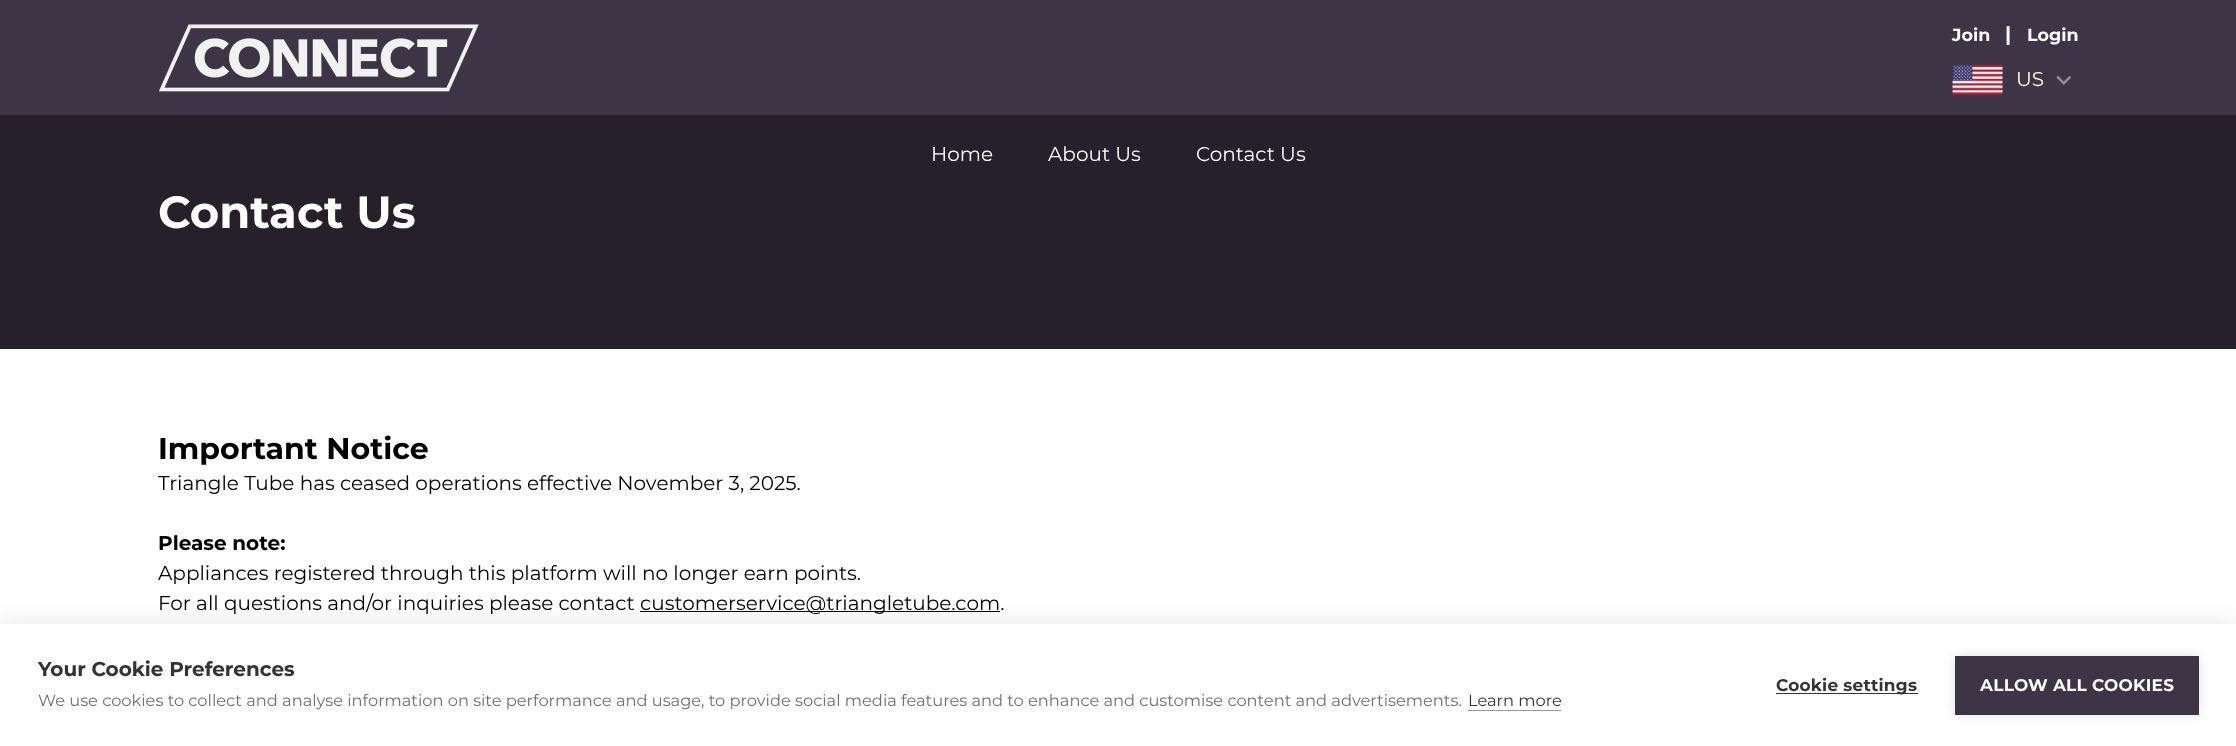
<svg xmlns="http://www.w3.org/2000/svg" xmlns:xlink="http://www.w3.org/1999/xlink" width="2236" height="746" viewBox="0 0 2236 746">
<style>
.cls-1{font:bold 17.5px Montserrat;fill:#ffffff}
.cls-2{font:bold 20px Montserrat;fill:#ffffff}
.cls-3{font:20px Montserrat;fill:#ffffff}
.cls-4{font:bold 45px Montserrat;fill:#ffffff}
.cls-5{font:bold 30px Montserrat;fill:#000000}
.cls-6{font:20px Montserrat;fill:#000000}
.cls-7{font:bold 20px Montserrat;fill:#000000}
.cls-8{font:bold 20px Montserrat;fill:#333333}
.cls-9{font:16.25px Montserrat;fill:#707070}
.cls-10{font:16.25px Montserrat;fill:#333333}
.cls-11{font:bold 16.9px Montserrat;letter-spacing:0.25px;fill:#333333}
.cls-12{font:bold 16.9px Montserrat;letter-spacing:0.25px;fill:#ffffff}
</style>
<rect width="100%" height="100%" fill="#252029"/>
<rect fill="#3d3545" x="0" y="0" width="2236" height="115"/>
<image xlink:href="image0.png" x="159" y="24" width="320" height="68"/>
<image xlink:href="image1.png" x="1952" y="64" width="51" height="31"/>
<image xlink:href="image2.png" x="2056" y="75" width="16" height="10"/>
<rect fill="#ffffff" x="0" y="349" width="2236" height="275"/>
<rect fill="#000000" x="640" y="611" width="360" height="1"/>
<rect fill="#000000" fill-opacity="0.1" filter="blur(12.5px)" x="0" y="624" width="2236" height="122"/>
<rect fill="#ffffff" x="0" y="624" width="2236" height="122"/>
<rect fill="#999999" x="1468" y="710" width="93" height="1"/>
<rect fill="#333333" x="1776" y="693" width="142" height="1"/>
<rect fill="#000000" fill-opacity="0.12" filter="blur(6px)" x="1955" y="656" width="244" height="59"/>
<rect fill="#3d3545" x="1955" y="656" width="244" height="59"/>
<text class="cls-1" x="1952" y="41">Join</text>
<text class="cls-2" x="2005" y="41">|</text>
<text class="cls-1" x="2027" y="41">Login</text>
<text class="cls-3" x="2016" y="86">US</text>
<text class="cls-3" x="931" y="161">Home</text>
<text class="cls-3" x="1048" y="161">About Us</text>
<text class="cls-3" x="1196" y="161">Contact Us</text>
<text class="cls-4" x="158" y="228">Contact Us</text>
<text class="cls-5" x="158" y="459">Important Notice</text>
<text class="cls-6" x="158" y="490">Triangle Tube has ceased operations effective November 3, 2025.</text>
<text class="cls-7" x="158" y="550">Please note:</text>
<text class="cls-6"><tspan x="158" y="580">Appliances registered through this platform will no longer earn points.</tspan><tspan x="158" y="610">For all questions and/or inquiries please contact</tspan></text>
<text class="cls-6" x="640" y="610">customerservice@triangletube.com.</text>
<text class="cls-8" x="38" y="676">Your Cookie Preferences</text>
<text class="cls-9" x="38" y="706">We use cookies to collect and analyse information on site performance and usage, to provide social media features and to enhance and customise content and advertisements.</text>
<text class="cls-10" x="1468" y="706">Learn more</text>
<text class="cls-11" x="1776" y="691">Cookie settings</text>
<text class="cls-12" x="1980" y="691">ALLOW ALL COOKIES</text>
</svg>
